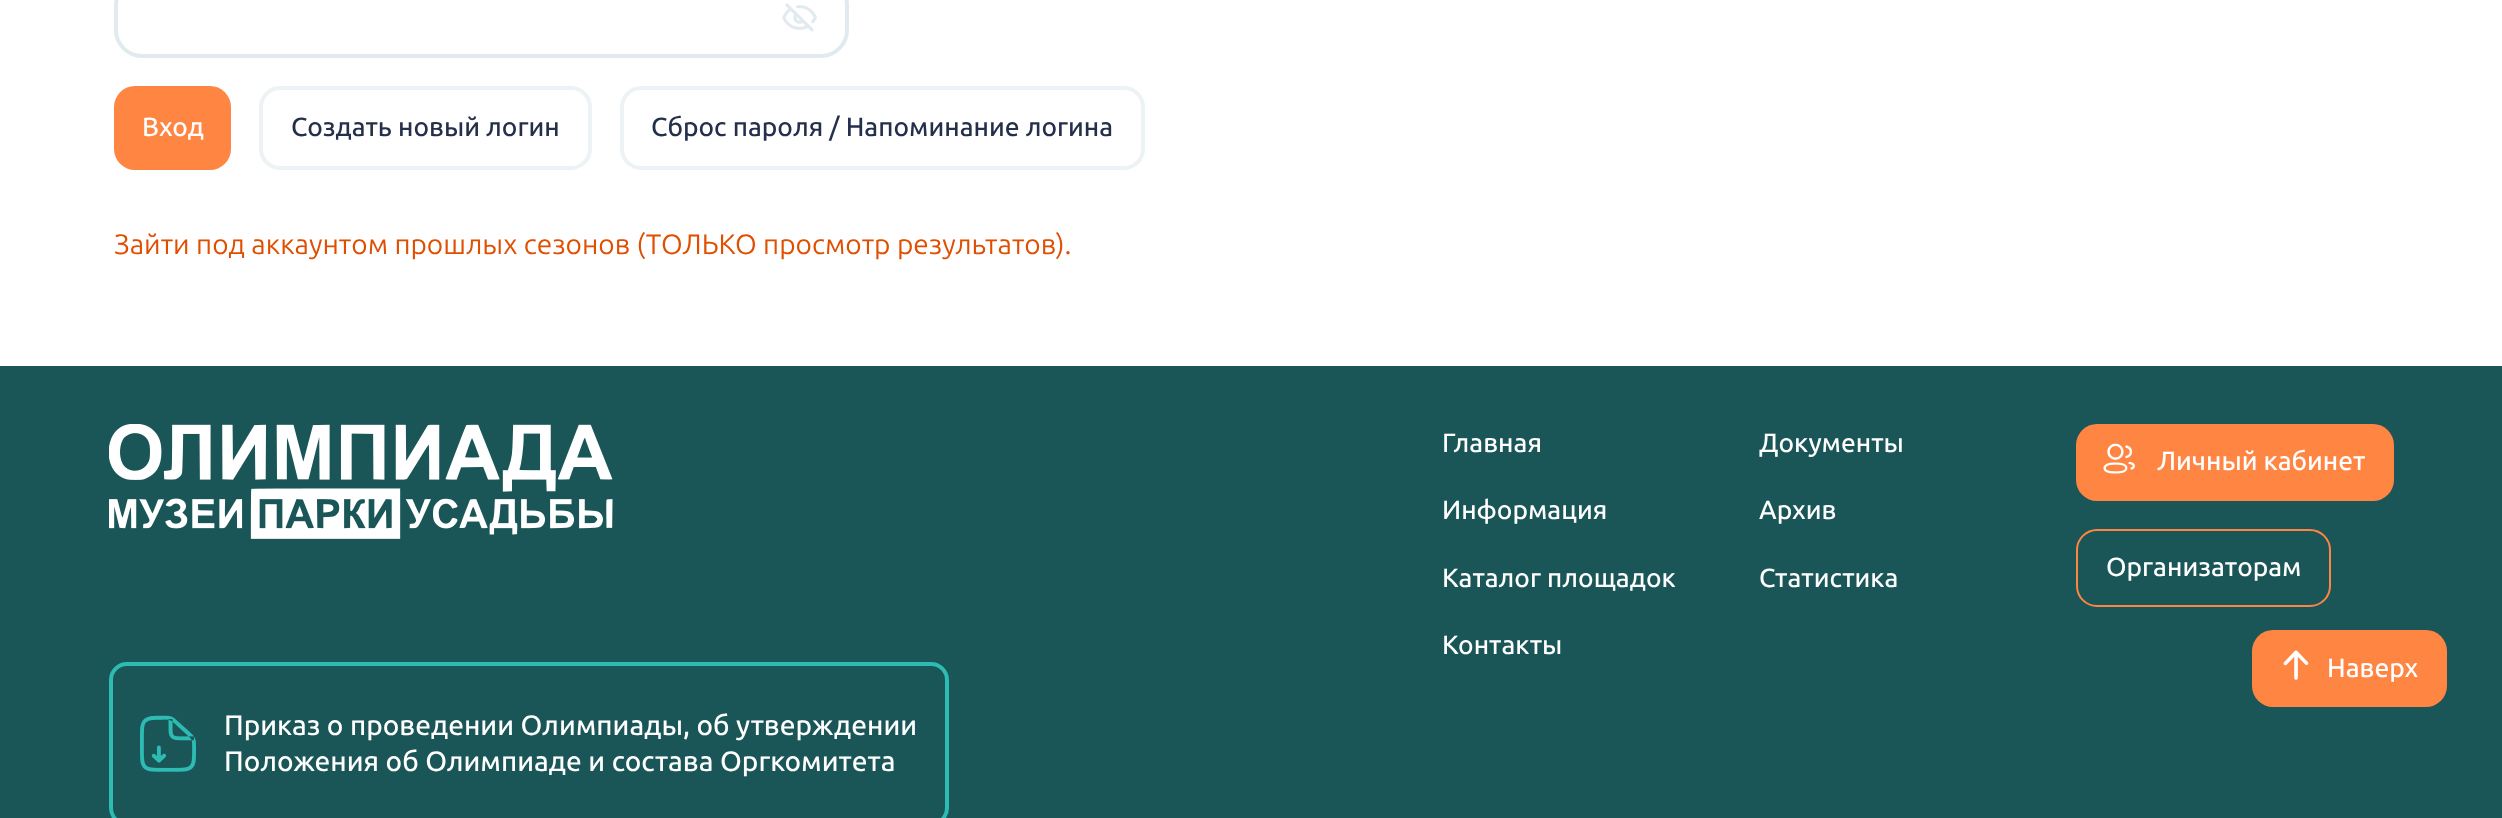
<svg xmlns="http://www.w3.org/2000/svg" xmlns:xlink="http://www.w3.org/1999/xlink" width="2502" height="818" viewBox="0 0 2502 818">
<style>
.cls-1{font:500 26.3px Ubuntu;fill:#ffffff}
.cls-2{font:500 26.3px Ubuntu;fill:#242f4b}
.cls-3{font:28px Ubuntu;fill:#e04e00}
.cls-4{font:500 28px Ubuntu;fill:#ffffff}
</style>
<rect width="100%" height="100%" fill="#ffffff"/>
<rect fill="none" stroke="#e1ebef" stroke-width="4" x="116" y="-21" width="731" height="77" rx="26"/>
<image xlink:href="image0.png" x="782" y="3" width="35" height="29"/>
<rect fill="#ff8543" x="114" y="86" width="117" height="84" rx="21"/>
<rect fill="none" stroke="#edf2f4" stroke-width="4" x="261" y="88" width="329" height="80" rx="19"/>
<rect fill="none" stroke="#edf2f4" stroke-width="4" x="622" y="88" width="521" height="80" rx="19"/>
<rect fill="#1a5657" x="0" y="366" width="2502" height="452"/>
<rect fill="#ff8543" x="2076" y="424" width="318" height="77" rx="21"/>
<image xlink:href="image1.png" x="2103" y="443" width="32" height="31"/>
<rect fill="none" stroke="#ff8543" stroke-width="2" x="2077" y="530" width="253" height="76" rx="20"/>
<image xlink:href="image2.png" x="109" y="424" width="504" height="115"/>
<rect fill="none" stroke="#2dbbb3" stroke-width="4" x="111" y="664" width="836" height="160" rx="16"/>
<image xlink:href="image3.png" x="140" y="715" width="56" height="57"/>
<rect fill="#ff8543" x="2252" y="630" width="195" height="77" rx="21"/>
<image xlink:href="image4.png" x="2283" y="650" width="26" height="30"/>
<text class="cls-1" x="142" y="136">Вход</text>
<text class="cls-2" x="291" y="136">Создать новый логин</text>
<text class="cls-2" x="651" y="136">Сброс пароля / Напоминание логина</text>
<text class="cls-3" x="114" y="254">Зайти под аккаунтом прошлых сезонов (ТОЛЬКО просмотр результатов).</text>
<text class="cls-1" x="1442" y="452">Главная</text>
<text class="cls-1" x="1442" y="519">Информация</text>
<text class="cls-1" x="1442" y="587">Каталог площадок</text>
<text class="cls-1" x="1442" y="654">Контакты</text>
<text class="cls-1" x="1759" y="452">Документы</text>
<text class="cls-1" x="1759" y="519">Архив</text>
<text class="cls-1" x="1759" y="587">Статистика</text>
<text class="cls-1" x="2157" y="470">Личный кабинет</text>
<text class="cls-1" x="2106" y="576">Организаторам</text>
<text class="cls-4"><tspan x="224" y="735">Приказ о проведении Олимпиады, об утверждении</tspan><tspan x="224" y="771">Положения об Олимпиаде и состава Оргкомитета</tspan></text>
<text class="cls-1" x="2327" y="677">Наверх</text>
</svg>
